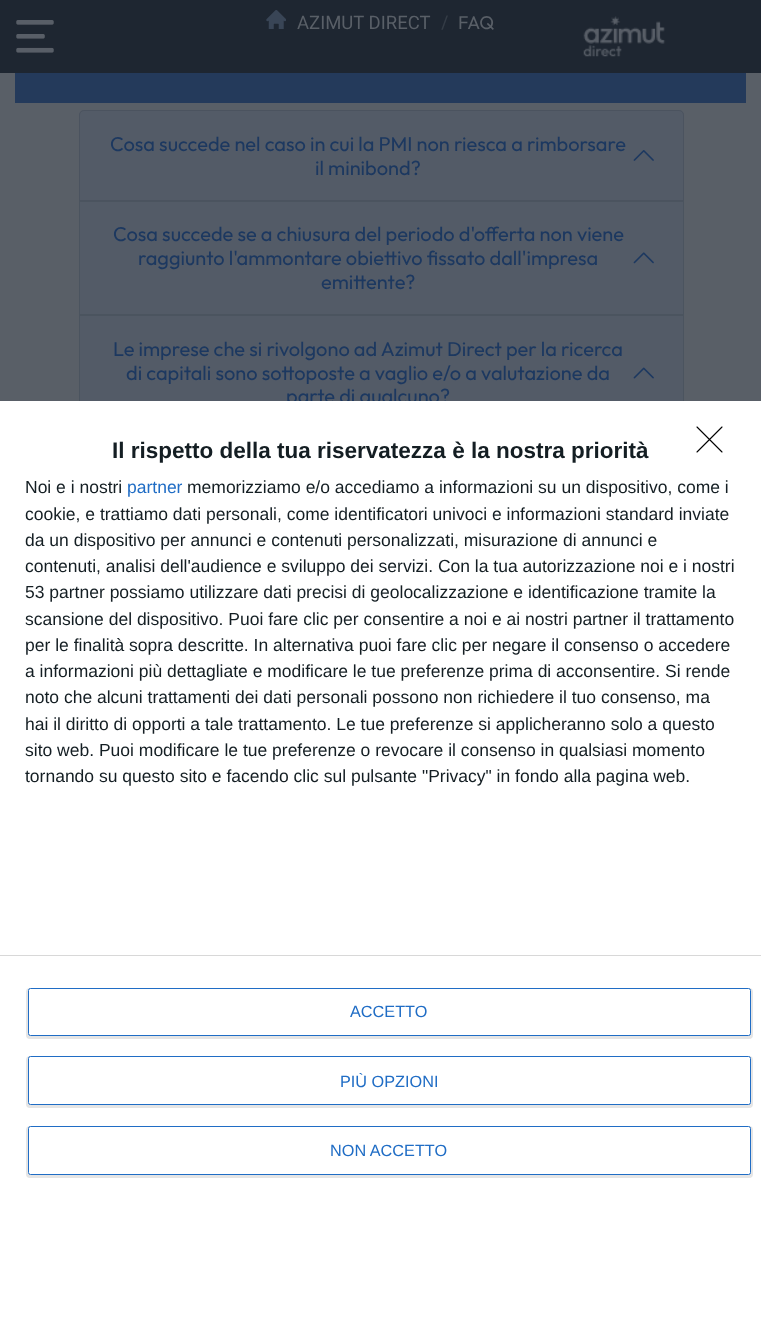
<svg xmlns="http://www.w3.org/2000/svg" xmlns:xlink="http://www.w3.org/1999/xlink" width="761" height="1338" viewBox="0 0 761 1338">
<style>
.cls-1{font:18.5px Roboto;fill:#595f67}
.cls-2{font:100 18.5px Outfit;fill:#343c46}
.cls-3{font:100 18.5px Outfit;fill:#595f67}
.cls-4{font:100 20px Outfit;fill:#1c3860}
.cls-5{font:bold 22.5px Liberation Sans;fill:#141e23}
.cls-6{font:17.5px Liberation Sans;fill:#141e23}
.cls-7{font:17.5px Liberation Sans;fill:#206dc5}
.cls-8{font:16.25px Liberation Sans;fill:#206dc5}
</style>
<rect width="100%" height="100%" fill="#595f67"/>
<rect fill="#1e2631" x="0" y="0" width="761" height="73"/>
<image xlink:href="image0.png" x="16" y="20" width="38" height="33"/>
<image xlink:href="image1.png" x="583" y="16" width="83" height="41"/>
<image xlink:href="image2.png" x="266" y="10" width="20" height="19"/>
<path fill="#535b67" d="M84 110H679C682 110 684 112 684 115V201H79V115C79 112 81 110 84 110Z"/>
<path fill="none" stroke="#191f27" stroke-opacity="0.12" d="M84 110.5H679C681.5 110.5 683.5 112.5 683.5 115V200.5H79.5V115C79.5 112.5 81.5 110.5 84 110.5Z"/>
<image xlink:href="image3.png" x="633" y="150" width="21" height="11"/>
<rect fill="#535b67" stroke="#4b545f" x="79.5" y="201.5" width="604" height="113"/>
<image xlink:href="image4.png" x="633" y="252" width="21" height="12"/>
<rect fill="#535b67" x="80" y="316" width="603" height="85"/>
<rect fill="none" stroke="#4b545f" x="79.5" y="315.5" width="604" height="114"/>
<image xlink:href="image5.png" x="633" y="367" width="21" height="12"/>
<rect fill="#243a5b" x="15" y="73" width="731" height="30"/>
<text class="cls-1" x="297" y="29">AZIMUT DIRECT</text>
<text class="cls-2" x="441" y="29">/</text>
<text class="cls-3" x="458" y="29">FAQ</text>
<text class="cls-4" x="110" y="151">Cosa succede nel caso in cui la PMI non riesca a rimborsare</text>
<text class="cls-4" x="315" y="175">il minibond?</text>
<text class="cls-4" x="113" y="241">Cosa succede se a chiusura del periodo d'offerta non viene</text>
<text class="cls-4" x="138" y="265">raggiunto l'ammontare obiettivo fissato dall'impresa</text>
<text class="cls-4" x="321" y="289">emittente?</text>
<text class="cls-4" x="113" y="356">Le imprese che si rivolgono ad Azimut Direct per la ricerca</text>
<text class="cls-4" x="126" y="380">di capitali sono sottoposte a vaglio e/o a valutazione da</text>
<text class="cls-4" x="286" y="403">parte di qualcuno?</text>
<rect fill="#ffffff" x="0" y="401" width="761" height="937"/>
<path fill="none" stroke="#000000" stroke-width="1.1" stroke-linecap="round" stroke-linejoin="round" d="M697 427L722 452M722 427L697 452"/>
<text class="cls-5" x="112" y="458">Il rispetto della tua riservatezza è la nostra priorità</text>
<text class="cls-6" x="25" y="493">Noi e i nostri</text>
<text class="cls-7" x="127" y="493">partner</text>
<text class="cls-6" x="187" y="493">memorizziamo e/o accediamo a informazioni su un dispositivo, come i</text>
<text class="cls-6"><tspan x="25" y="520">cookie, e trattiamo dati personali, come identificatori univoci e informazioni standard inviate</tspan><tspan x="25" y="546">da un dispositivo per annunci e contenuti personalizzati, misurazione di annunci e</tspan><tspan x="25" y="572">contenuti, analisi dell'audience e sviluppo dei servizi. Con la tua autorizzazione noi e i nostri</tspan><tspan x="25" y="598">53 partner possiamo utilizzare dati precisi di geolocalizzazione e identificazione tramite la</tspan><tspan x="25" y="625">scansione del dispositivo. Puoi fare clic per consentire a noi e ai nostri partner il trattamento</tspan><tspan x="25" y="651">per le finalità sopra descritte. In alternativa puoi fare clic per negare il consenso o accedere</tspan><tspan x="25" y="677">a informazioni più dettagliate e modificare le tue preferenze prima di acconsentire. Si rende</tspan><tspan x="25" y="703">noto che alcuni trattamenti dei dati personali possono non richiedere il tuo consenso, ma</tspan><tspan x="25" y="730">hai il diritto di opporti a tale trattamento. Le tue preferenze si applicheranno solo a questo</tspan><tspan x="25" y="756">sito web. Puoi modificare le tue preferenze o revocare il consenso in qualsiasi momento</tspan><tspan x="25" y="782">tornando su questo sito e facendo clic sul pulsante "Privacy" in fondo alla pagina web.</tspan></text>
<rect fill="#d8d8d8" x="0" y="955" width="761" height="1"/>
<rect fill="#000000" fill-opacity="0.1" filter="blur(0.5px)" x="26" y="988" width="727" height="51" rx="4"/>
<rect fill="#ffffff" stroke="#206dc5" x="28.5" y="988.5" width="722" height="47" rx="2"/>
<text class="cls-8" x="350" y="1017">ACCETTO</text>
<rect fill="#000000" fill-opacity="0.1" filter="blur(0.5px)" x="26" y="1056" width="727" height="52" rx="4"/>
<rect fill="#ffffff" stroke="#206dc5" x="28.5" y="1056.5" width="722" height="48" rx="2"/>
<text class="cls-8" x="340" y="1087">PIÙ OPZIONI</text>
<rect fill="#000000" fill-opacity="0.1" filter="blur(0.5px)" x="26" y="1126" width="727" height="52" rx="4"/>
<rect fill="#ffffff" stroke="#206dc5" x="28.5" y="1126.5" width="722" height="48" rx="2"/>
<text class="cls-8" x="330" y="1156">NON ACCETTO</text>
</svg>
